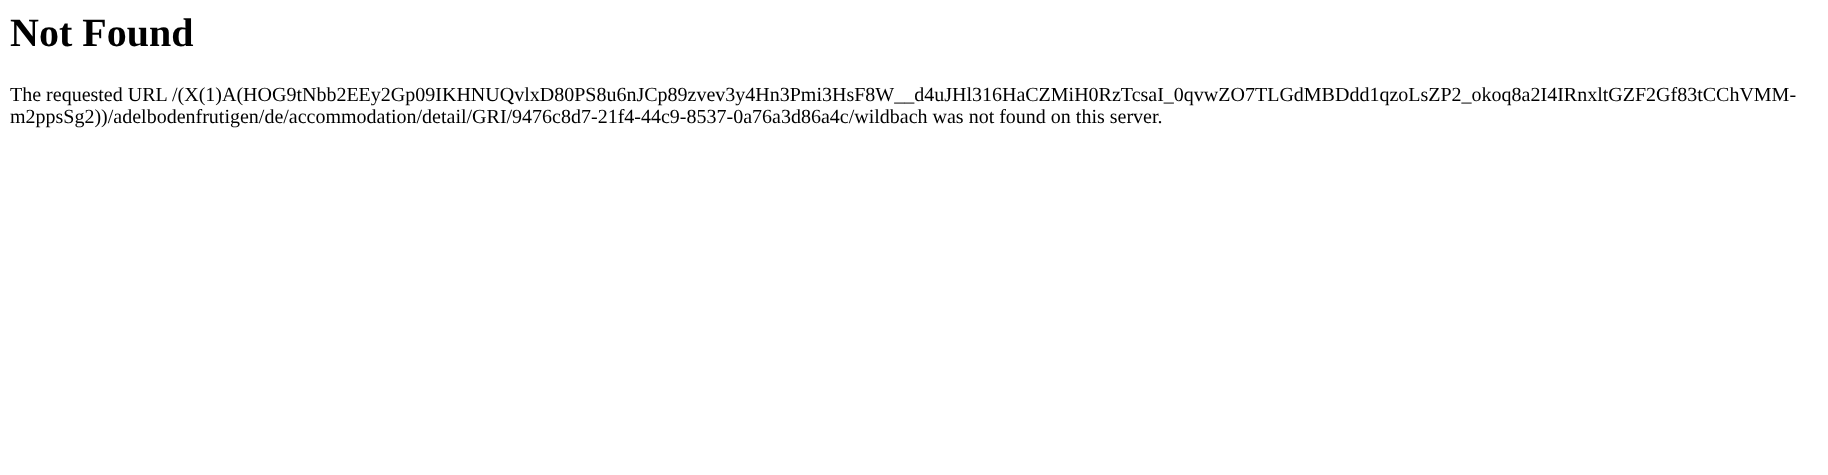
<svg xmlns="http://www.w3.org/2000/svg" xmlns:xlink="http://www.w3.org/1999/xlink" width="1828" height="475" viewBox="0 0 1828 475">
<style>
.cls-1{font:bold 40px Liberation Serif;fill:#000000}
.cls-2{font:20px Liberation Serif;fill:#000000}
</style>
<rect width="100%" height="100%" fill="#ffffff"/>
<text class="cls-1" x="10" y="46">Not Found</text>
<text class="cls-2"><tspan x="10" y="101">The requested URL /(X(1)A(HOG9tNbb2EEy2Gp09IKHNUQvlxD80PS8u6nJCp89zvev3y4Hn3Pmi3HsF8W__d4uJHl316HaCZMiH0RzTcsaI_0qvwZO7TLGdMBDdd1qzoLsZP2_okoq8a2I4IRnxltGZF2Gf83tCChVMM-</tspan><tspan x="10" y="123">m2ppsSg2))/adelbodenfrutigen/de/accommodation/detail/GRI/9476c8d7-21f4-44c9-8537-0a76a3d86a4c/wildbach was not found on this server.</tspan></text>
</svg>
